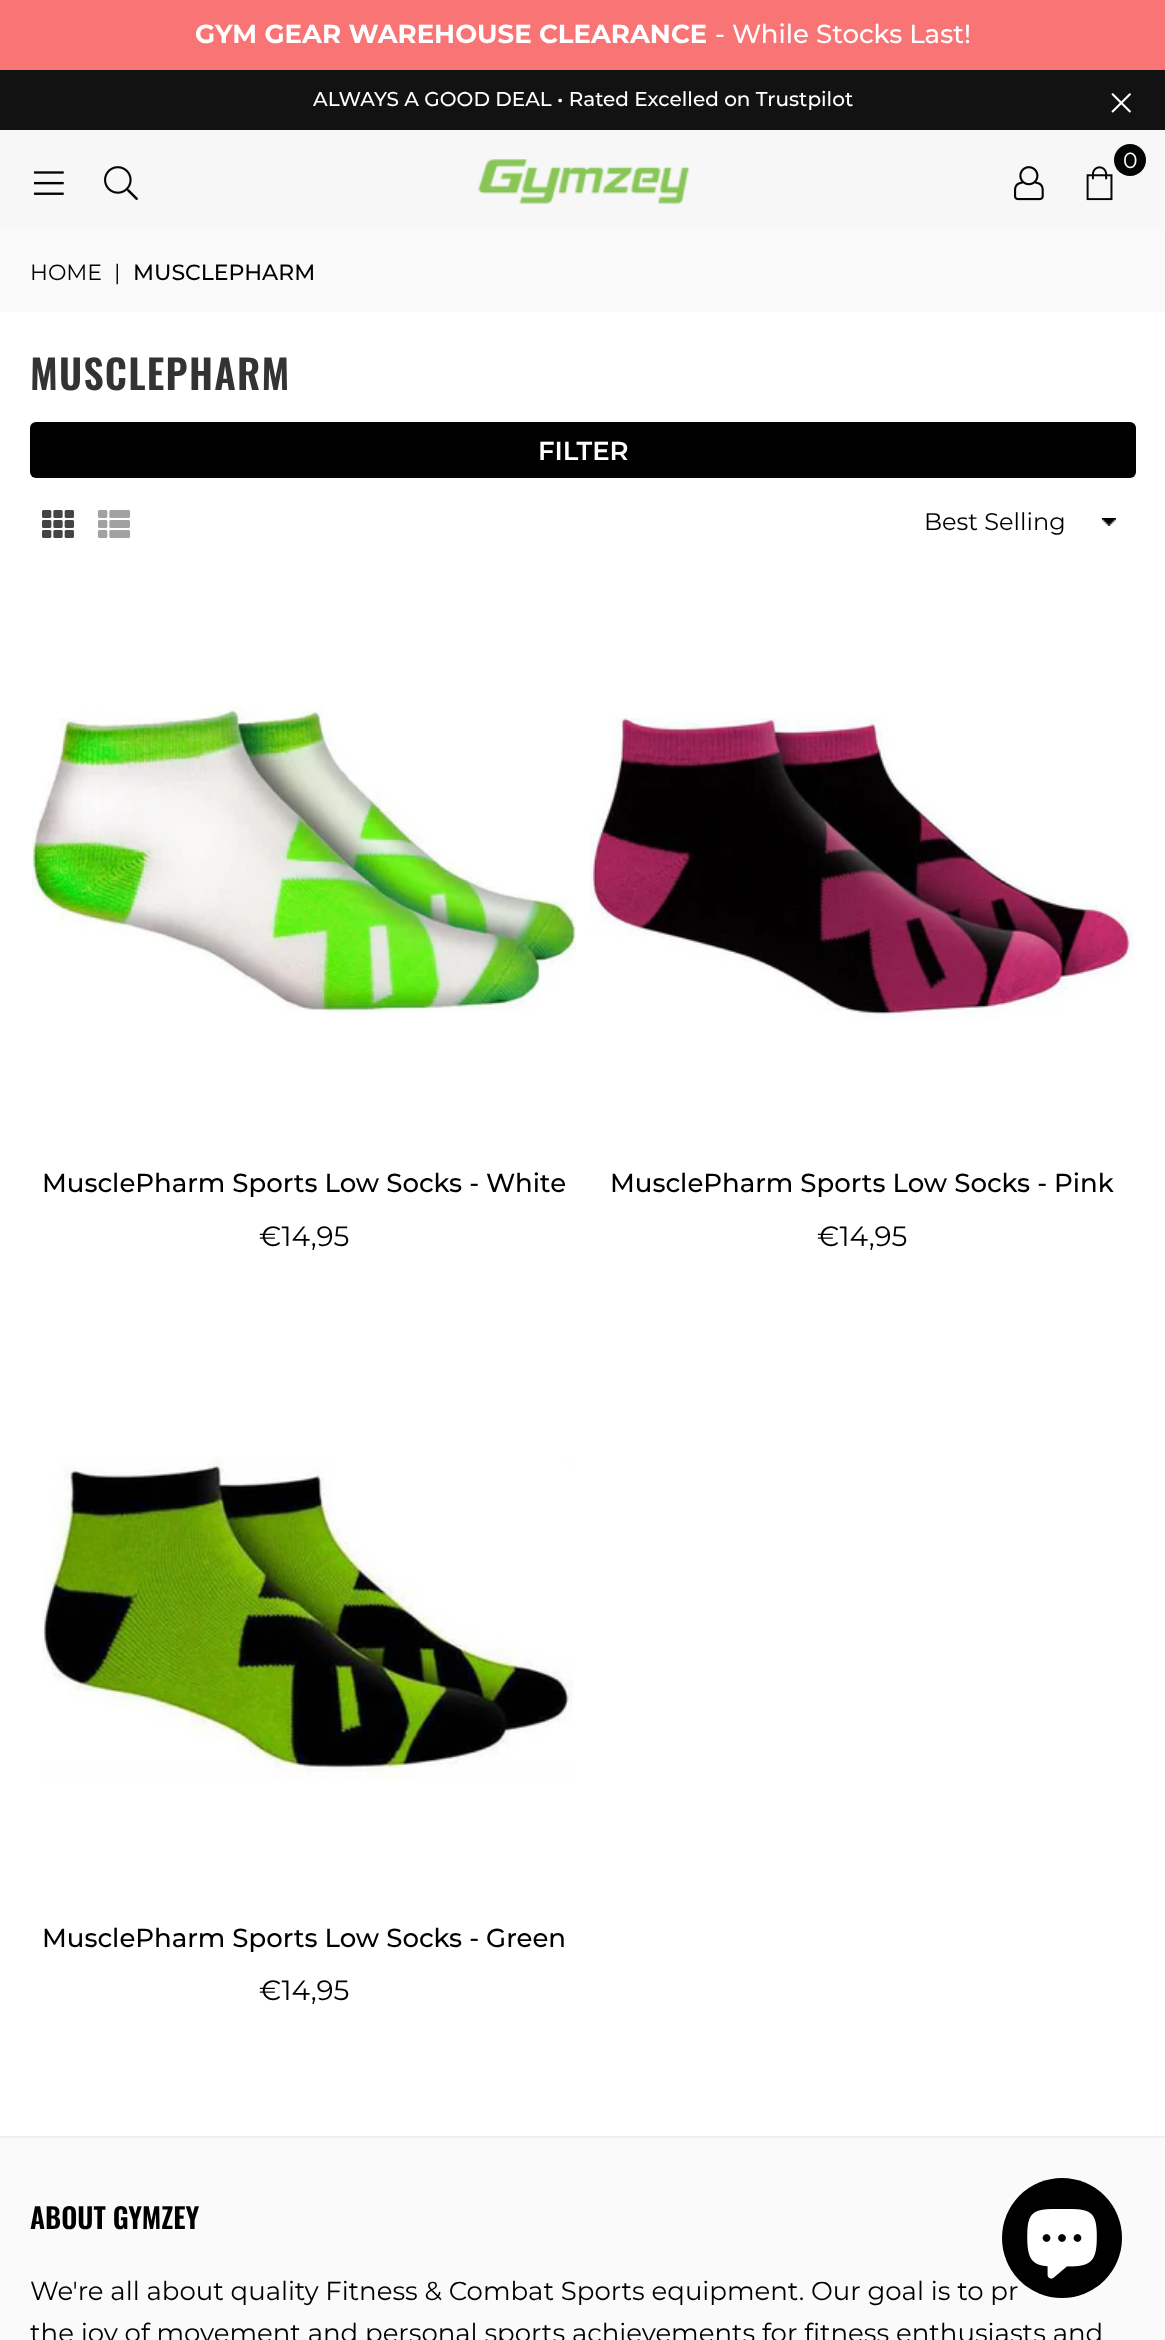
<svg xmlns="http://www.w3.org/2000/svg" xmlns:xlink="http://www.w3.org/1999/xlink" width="1165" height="2340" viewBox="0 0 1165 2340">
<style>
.cls-1{font:bold 26px Montserrat;fill:#ffffff}
.cls-2{font:500 26px Montserrat;fill:#ffffff}
.cls-3{font:500 20px Montserrat;fill:#ffffff}
.cls-4{font:22px Montserrat;fill:#ffffff}
.cls-5{font:22px Montserrat;fill:#000000}
.cls-6{font:500 22px Montserrat;fill:#000000}
.cls-7{font:600 40px Oswald;letter-spacing:1.25px;fill:#333333}
.cls-8{font:600 26px Montserrat;fill:#ffffff}
.cls-9{font:24px Montserrat;fill:#000000}
.cls-10{font:500 26px Montserrat;fill:#000000}
.cls-11{font:28px Montserrat;fill:#000000}
.cls-12{font:600 28px Oswald;fill:#000000}
.cls-13{font:26px Montserrat;fill:#000000}
</style>
<rect width="100%" height="100%" fill="#ffffff"/>
<rect fill="#f87475" x="0" y="0" width="1165" height="70"/>
<rect fill="#121212" x="0" y="70" width="1165" height="60"/>
<image xlink:href="image0.png" x="1111" y="93" width="20" height="20"/>
<rect fill="#f7f7f7" x="0" y="130" width="1165" height="100"/>
<image xlink:href="image1.png" x="34" y="171" width="30" height="24"/>
<image xlink:href="image2.png" x="104" y="166" width="34" height="35"/>
<image xlink:href="image3.png" x="478" y="159" width="212" height="45"/>
<circle fill="#030505" cx="1130" cy="160" r="16"/>
<image xlink:href="image4.png" x="1086" y="166" width="27" height="35"/>
<image xlink:href="image5.png" x="1014" y="166" width="30" height="35"/>
<rect fill="#f9f9f9" x="0" y="230" width="1165" height="82"/>
<rect fill="#000000" x="30" y="422" width="1106" height="56" rx="6"/>
<image xlink:href="image6.png" x="42" y="510" width="32" height="28"/>
<image xlink:href="image7.png" x="98" y="510" width="32" height="28"/>
<image xlink:href="image8.png" x="1102" y="518" width="14" height="8"/>
<image xlink:href="image9.png" x="32" y="703" width="544" height="311"/>
<image xlink:href="image10.png" x="590" y="714" width="544" height="306"/>
<image xlink:href="image11.png" x="42" y="1456" width="531" height="323"/>
<rect fill="#fafafa" x="0" y="2138" width="1165" height="202"/>
<circle fill="#000000" cx="1062" cy="2238" r="60"/>
<image xlink:href="image12.png" x="1027" y="2209" width="70" height="70"/>
<rect fill="#eeeeee" x="0" y="2136" width="1165" height="2"/>
<text class="cls-1" x="195" y="43">GYM GEAR WAREHOUSE CLEARANCE</text>
<text class="cls-2" x="715" y="43">- While Stocks Last!</text>
<text class="cls-3" x="313" y="106">ALWAYS A GOOD DEAL • Rated Excelled on Trustpilot</text>
<text class="cls-4" x="1123" y="168">0</text>
<text class="cls-5" x="30" y="280">HOME</text>
<text class="cls-5" x="114" y="280">|</text>
<text class="cls-6" x="133" y="280">MUSCLEPHARM</text>
<text class="cls-7" x="30" y="390">MUSCLEPHARM</text>
<text class="cls-8" x="538" y="460">FILTER</text>
<text class="cls-9" x="924" y="530">Best Selling</text>
<text class="cls-10" x="42" y="1192">MusclePharm Sports Low Socks - White</text>
<text class="cls-11" x="259" y="1246">€14,95</text>
<text class="cls-10" x="610" y="1192">MusclePharm Sports Low Socks - Pink</text>
<text class="cls-11" x="817" y="1246">€14,95</text>
<text class="cls-10" x="42" y="1947">MusclePharm Sports Low Socks - Green</text>
<text class="cls-11" x="259" y="2000">€14,95</text>
<text class="cls-12" x="30" y="2229">ABOUT GYMZEY</text>
<text class="cls-13"><tspan x="30" y="2300">We're all about quality Fitness &amp; Combat Sports equipment. Our goal is to pr</tspan><tspan x="30" y="2342">the joy of movement and personal sports achievements for fitness enthusiasts and</tspan></text>
</svg>
